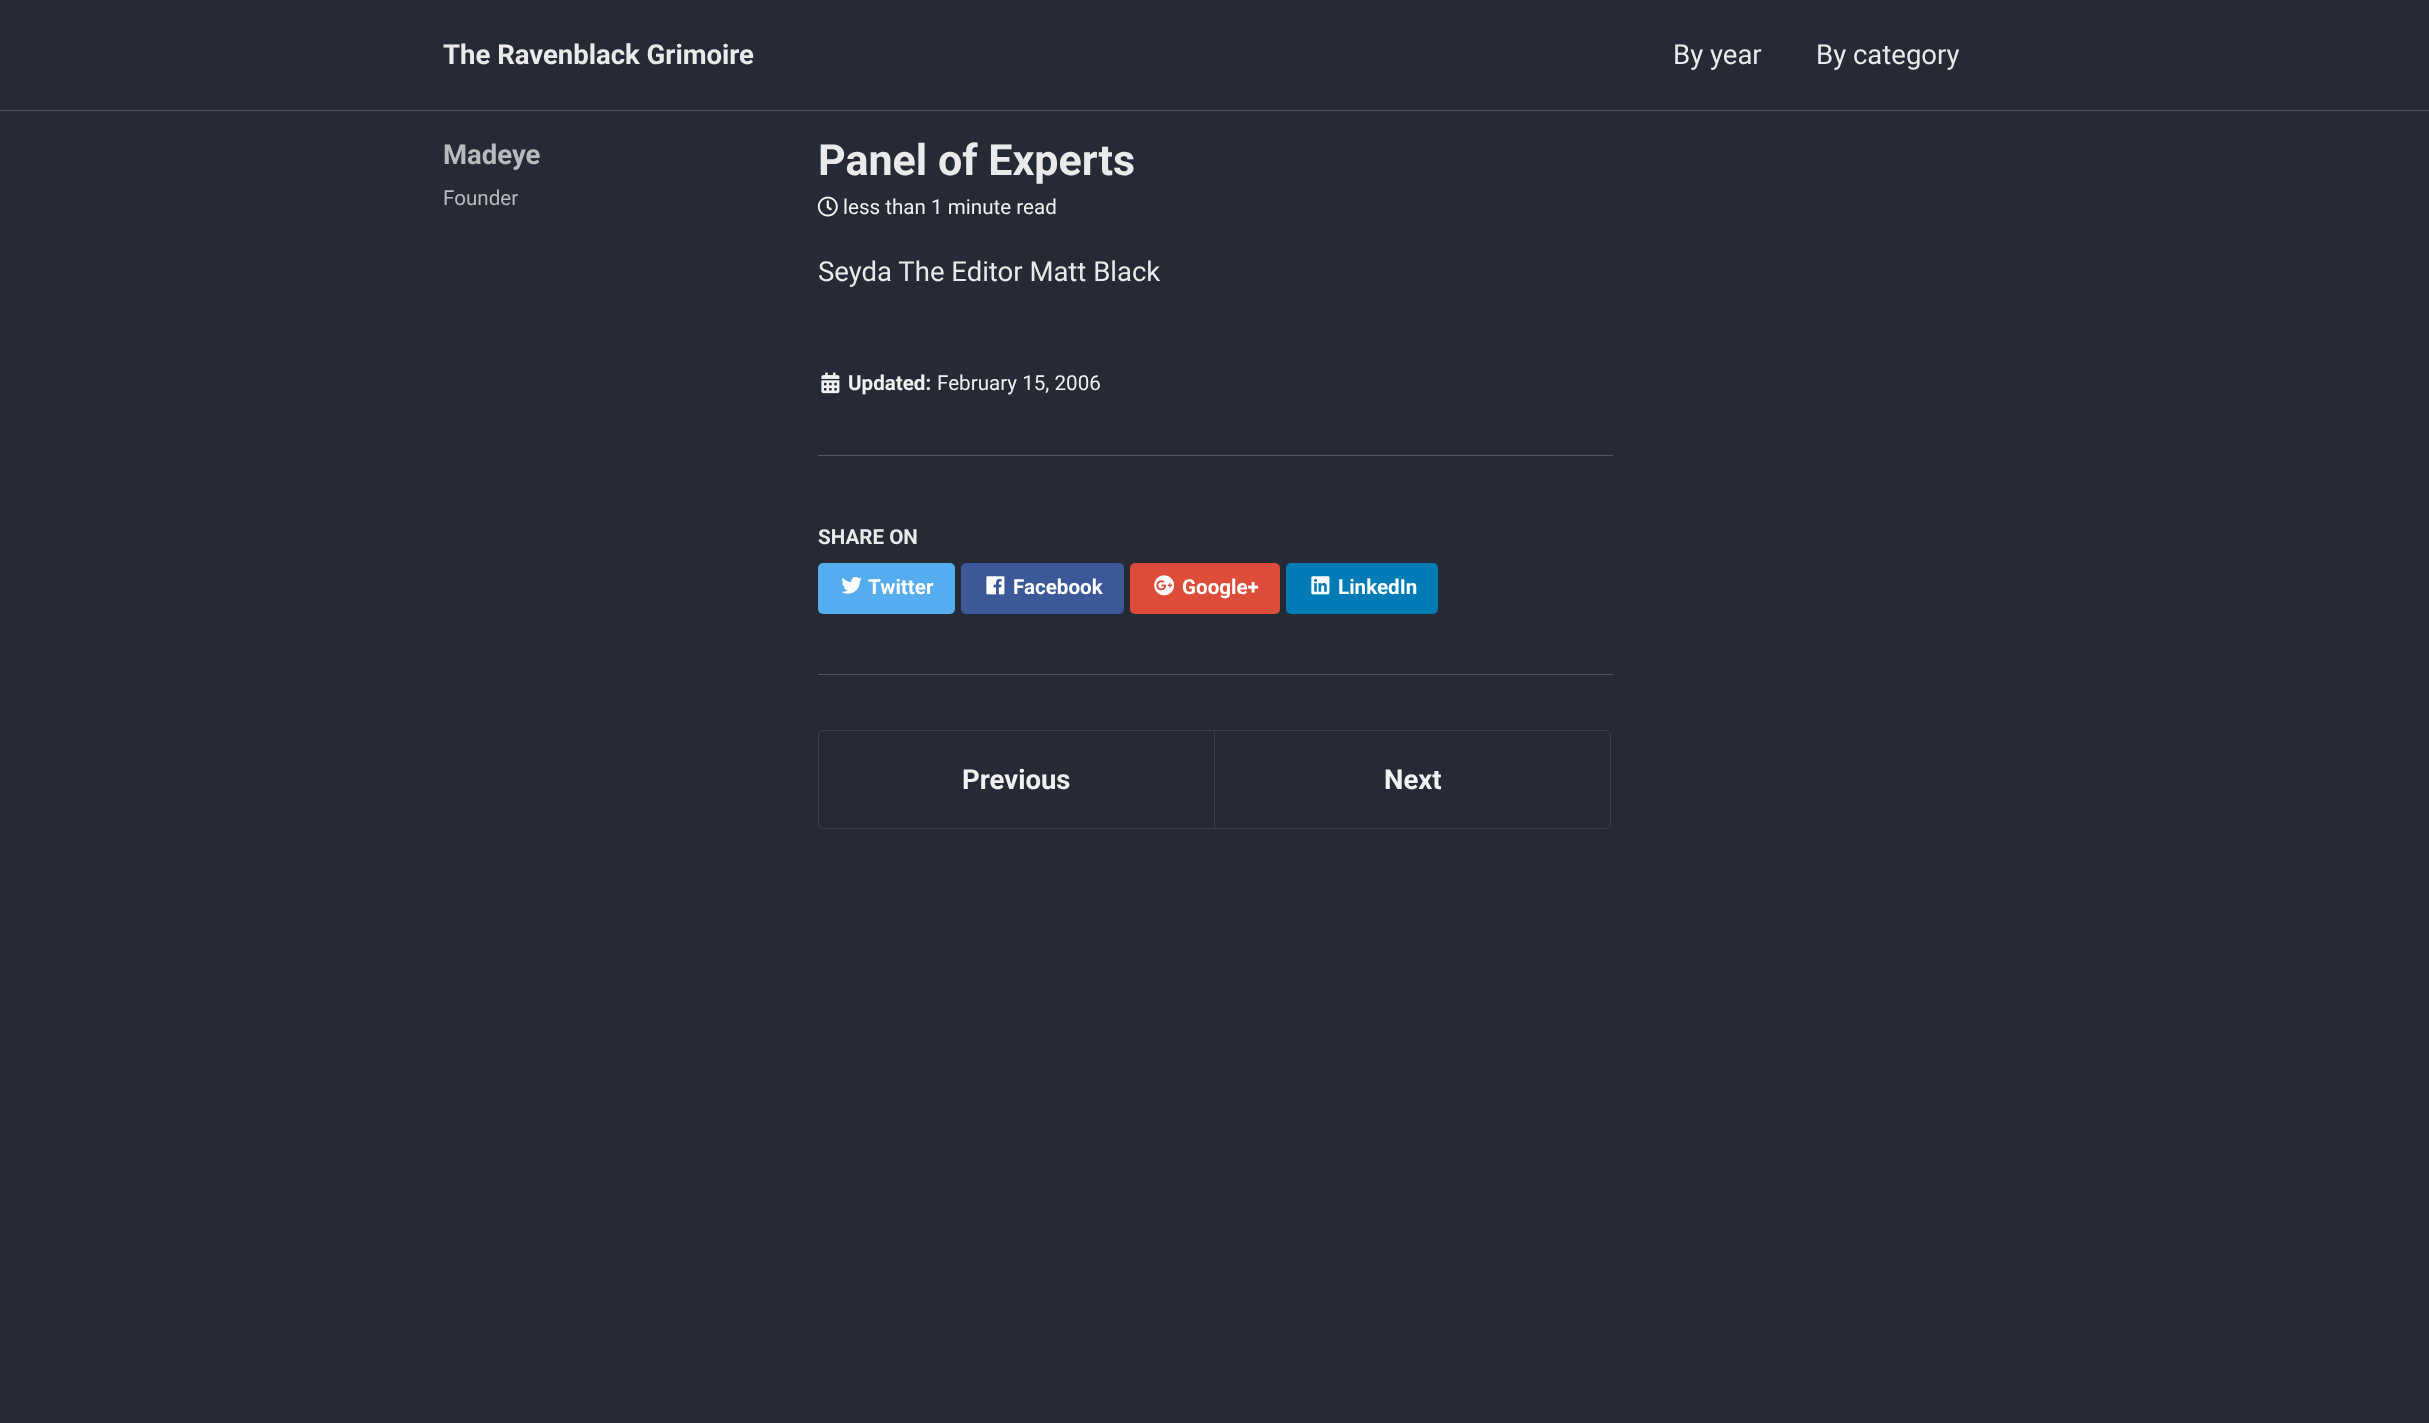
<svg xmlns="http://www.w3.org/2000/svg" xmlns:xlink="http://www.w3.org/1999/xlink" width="2429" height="1423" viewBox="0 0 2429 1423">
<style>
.cls-1{font:bold 27.5px Roboto;fill:#eaeaea}
.cls-2{font:27.5px Roboto;fill:#eaeaea}
.cls-3{font:bold 27.5px Roboto;fill:#b9babd}
.cls-4{font:20.6px Roboto;fill:#b9babd}
.cls-5{font:bold 43px Roboto;fill:#eaeaea}
.cls-6{font:20.6px Roboto;fill:#f1f1f1}
.cls-7{font:bold 20.6px Roboto;fill:#f1f1f1}
.cls-8{font:bold 20.6px Roboto;fill:#eaeaea}
.cls-9{font:bold 20.6px Roboto;fill:#ffffff}
.cls-10{font:bold 27.5px Roboto;fill:#f1f1f1}
</style>
<rect width="100%" height="100%" fill="#252a34"/>
<rect fill="#51555d" x="0" y="110" width="2429" height="1"/>
<image xlink:href="image0.png" x="817" y="196" width="21" height="21"/>
<image xlink:href="image1.png" x="821" y="372" width="19" height="22"/>
<rect fill="#51555d" x="818" y="455" width="795" height="1"/>
<rect fill="#55acee" x="818" y="563" width="137" height="51" rx="5"/>
<image xlink:href="image2.png" x="841" y="576" width="21" height="18"/>
<rect fill="#3b5998" x="961" y="563" width="163" height="51" rx="5"/>
<image xlink:href="image3.png" x="986" y="576" width="19" height="19"/>
<rect fill="#dd4b39" x="1130" y="563" width="150" height="51" rx="5"/>
<image xlink:href="image4.png" x="1154" y="575" width="21" height="21"/>
<rect fill="#007bb6" x="1286" y="563" width="152" height="51" rx="5"/>
<image xlink:href="image5.png" x="1311" y="576" width="19" height="19"/>
<rect fill="#51555d" x="818" y="674" width="795" height="1"/>
<path fill="none" stroke="#3d4046" d="M823 730.5H1214.5V828.5H823C820.5 828.5 818.5 826.5 818.5 824V735C818.5 732.5 820.5 730.5 823 730.5Z"/>
<path fill="none" stroke="#3d4046" d="M1214.5 730.5H1606C1608.5 730.5 1610.5 732.5 1610.5 735V824C1610.5 826.5 1608.5 828.5 1606 828.5H1214.5Z"/>
<text class="cls-1" x="443" y="64">The Ravenblack Grimoire</text>
<text class="cls-2" x="1673" y="64">By year</text>
<text class="cls-2" x="1816" y="64">By category</text>
<text class="cls-3" x="443" y="164">Madeye</text>
<text class="cls-4" x="443" y="205">Founder</text>
<text class="cls-5" x="818" y="175">Panel of Experts</text>
<text class="cls-6" x="843" y="214">less than 1 minute read</text>
<text class="cls-2" x="818" y="281">Seyda The Editor Matt Black</text>
<text class="cls-7" x="848" y="390">Updated:</text>
<text class="cls-6" x="937" y="390">February 15, 2006</text>
<text class="cls-8" x="818" y="544">SHARE ON</text>
<text class="cls-9" x="868" y="594">Twitter</text>
<text class="cls-9" x="1013" y="594">Facebook</text>
<text class="cls-9" x="1182" y="594">Google+</text>
<text class="cls-9" x="1338" y="594">LinkedIn</text>
<text class="cls-10" x="962" y="789">Previous</text>
<text class="cls-10" x="1384" y="789">Next</text>
</svg>
